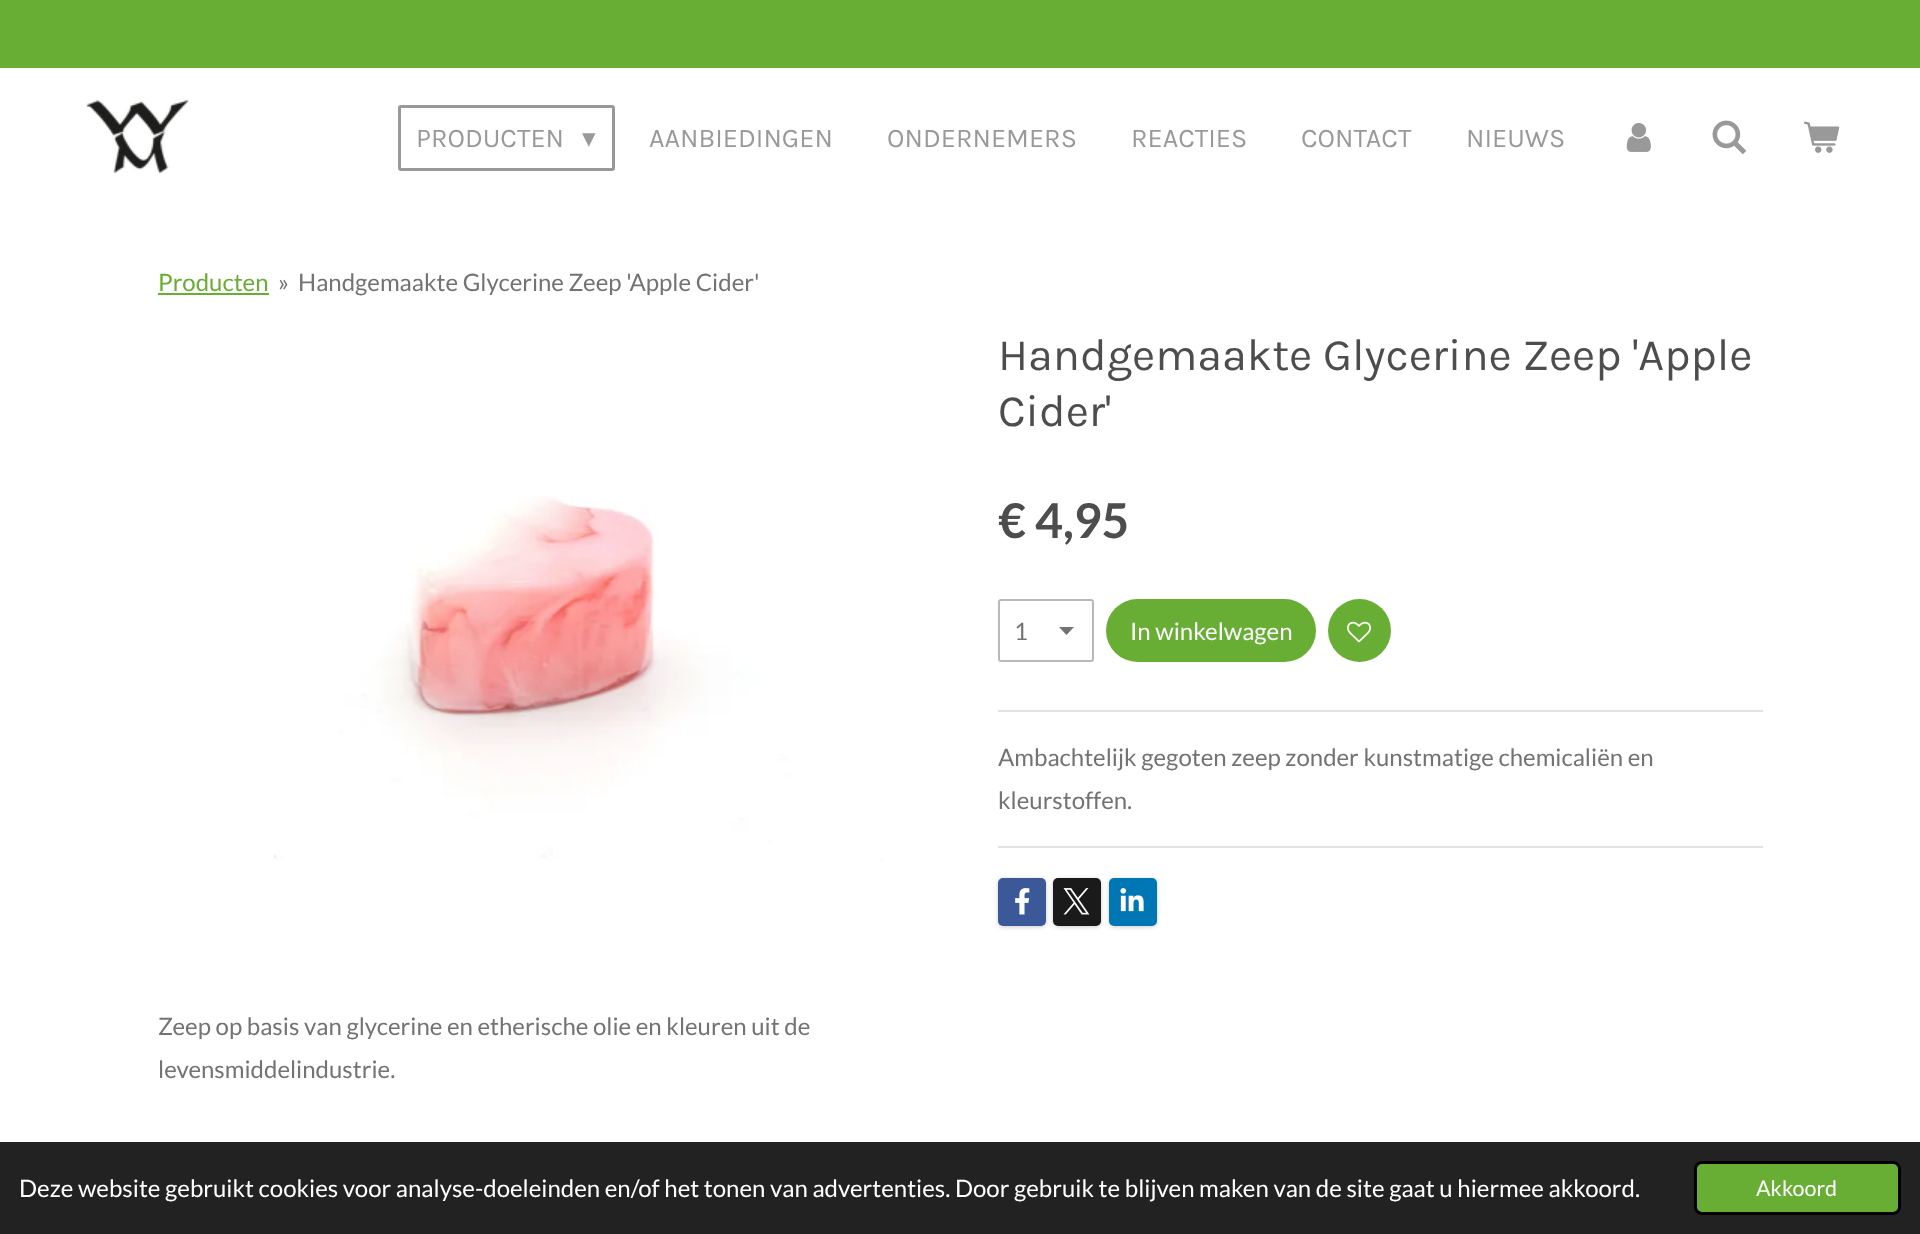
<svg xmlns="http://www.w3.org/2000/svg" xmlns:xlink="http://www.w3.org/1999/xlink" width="1920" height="1234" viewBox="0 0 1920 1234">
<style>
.cls-1{font:27px Karla;fill:#999999}
.cls-2{font:27px DejaVu Sans;fill:#999999}
.cls-3{font:24px Lato;fill:#68ae34}
.cls-4{font:24px Lato;fill:#737373}
.cls-5{font:45px Karla;fill:#4d4d4d}
.cls-6{font:bold 48px Lato;fill:#4d4d4d}
.cls-7{font:24px Lato;fill:#ffffff}
.cls-8{font:21.5px Lato;fill:#ffffff}
</style>
<rect width="100%" height="100%" fill="#ffffff"/>
<rect fill="#68ae34" x="0" y="0" width="1920" height="68"/>
<image xlink:href="image0.png" x="86" y="99" width="104" height="75"/>
<rect fill="none" stroke="#999999" stroke-width="3" x="399.5" y="106.5" width="214" height="63" rx="1.5"/>
<image xlink:href="image1.png" x="1626" y="123" width="25" height="29"/>
<image xlink:href="image2.png" x="1712" y="120" width="35" height="35"/>
<image xlink:href="image3.png" x="1804" y="121" width="36" height="32"/>
<rect fill="#68ae34" x="158" y="293" width="111" height="2"/>
<image xlink:href="image4.png" x="273" y="496" width="610" height="365"/>
<path fill="#737373" d="M1066.5 635L1059 627H1074Z"/>
<rect fill="none" stroke="#b9b9b9" stroke-width="2" x="999" y="600" width="94" height="61" rx="2"/>
<rect fill="#68ae34" x="1106" y="599" width="210" height="63" rx="31.5"/>
<circle fill="#68ae34" cx="1359.5" cy="630.5" r="31.5"/>
<image xlink:href="image5.png" x="1347" y="621" width="24" height="22"/>
<rect fill="#e3e3e3" x="998" y="710" width="765" height="2"/>
<rect fill="#e3e3e3" x="998" y="846" width="765" height="2"/>
<rect fill="#000000" fill-opacity="0.2" filter="blur(2px)" x="998" y="879" width="48" height="48" rx="5"/>
<rect fill="#3b5998" x="998" y="878" width="48" height="48" rx="5"/>
<image xlink:href="image6.png" x="1015" y="888" width="15" height="27"/>
<rect fill="#000000" fill-opacity="0.2" filter="blur(2px)" x="1053" y="879" width="48" height="48" rx="5"/>
<rect fill="#1a1a1a" x="1053" y="878" width="48" height="48" rx="5"/>
<image xlink:href="image7.png" x="1063" y="888" width="27" height="27"/>
<rect fill="#000000" fill-opacity="0.2" filter="blur(2px)" x="1109" y="879" width="48" height="48" rx="5"/>
<rect fill="#0077b5" x="1109" y="878" width="48" height="48" rx="5"/>
<image xlink:href="image8.png" x="1120" y="888" width="24" height="24"/>
<rect fill="#222222" x="0" y="1142" width="1920" height="92"/>
<rect fill="#68ae34" stroke="#000000" stroke-width="3" x="1695.5" y="1162.5" width="204" height="51" rx="6.5"/>
<text class="cls-1" x="416" y="147">PRODUCTEN</text>
<text class="cls-2" x="582" y="147">▾</text>
<text class="cls-1" x="649" y="147">AANBIEDINGEN</text>
<text class="cls-1" x="887" y="147">ONDERNEMERS</text>
<text class="cls-1" x="1131" y="147">REACTIES</text>
<text class="cls-1" x="1301" y="147">CONTACT</text>
<text class="cls-1" x="1466" y="147">NIEUWS</text>
<text class="cls-3" x="158" y="291">Producten</text>
<text class="cls-4" x="278" y="291">»</text>
<text class="cls-4" x="298" y="291">Handgemaakte Glycerine Zeep 'Apple Cider'</text>
<text class="cls-5"><tspan x="998" y="370">Handgemaakte Glycerine Zeep 'Apple</tspan><tspan x="998" y="426">Cider'</tspan></text>
<text class="cls-6" x="998" y="538">€ 4,95</text>
<text class="cls-4" x="1014" y="640">1</text>
<text class="cls-7" x="1130" y="640">In winkelwagen</text>
<text class="cls-4"><tspan x="998" y="766">Ambachtelijk gegoten zeep zonder kunstmatige chemicaliën en</tspan><tspan x="998" y="809">kleurstoffen.</tspan></text>
<text class="cls-4"><tspan x="158" y="1035">Zeep op basis van glycerine en etherische olie en kleuren uit de</tspan><tspan x="158" y="1078">levensmiddelindustrie.</tspan></text>
<text class="cls-7" x="19" y="1197">Deze website gebruikt cookies voor analyse-doeleinden en/of het tonen van advertenties. Door gebruik te blijven maken van de site gaat u hiermee akkoord.</text>
<text class="cls-8" x="1756" y="1196">Akkoord</text>
</svg>
